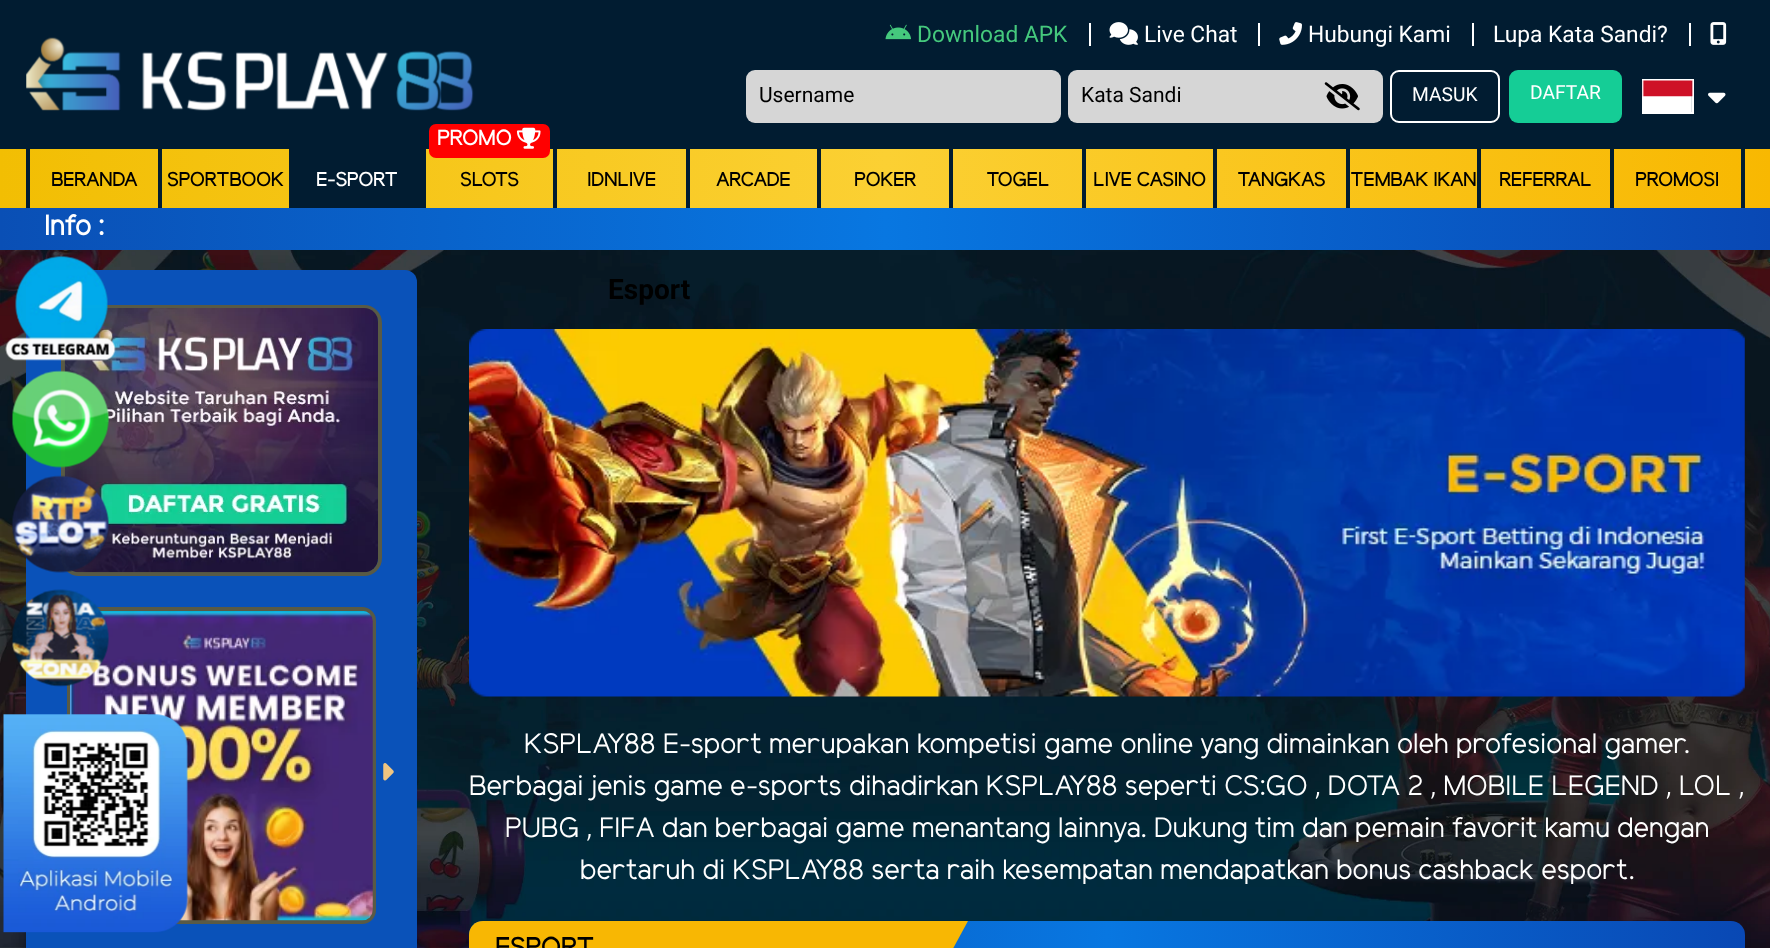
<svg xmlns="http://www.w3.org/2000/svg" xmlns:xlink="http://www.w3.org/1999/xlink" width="1770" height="948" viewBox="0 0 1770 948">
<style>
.cls-1{font:22.75px Roboto;fill:#45c97d}
.cls-2{font:22.75px Roboto;fill:#ffffff}
.cls-3{font:21px Roboto;fill:#000000}
.cls-4{font:19.25px Roboto;fill:#ffffff}
.cls-5{font:bold 19.25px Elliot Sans;fill:#000000}
.cls-6{font:bold 19.25px Elliot Sans;fill:#ffffff}
.cls-7{font:bold 21px Elliot Sans;fill:#ffffff}
.cls-8{font:bold 28px Elliot Sans;fill:#ffffff}
.cls-9{font:bold 28px Roboto;fill:#000000}
.cls-10{font:28px Elliot Sans;fill:#ffffff}
.cls-11{font:bold 26px Elliot Sans;fill:#000000}
</style>
<defs>
<linearGradient id="g1" gradientUnits="userSpaceOnUse" x1="0" y1="179" x2="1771" y2="178"><stop offset="0" stop-color="#f2be03"/><stop offset="0.5" stop-color="#fbd033"/><stop offset="1" stop-color="#f8b801"/></linearGradient>
<linearGradient id="g2" gradientUnits="userSpaceOnUse" x1="0" y1="229" x2="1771" y2="229"><stop offset="0" stop-color="#0a4fb5"/><stop offset="0.5" stop-color="#0877e1"/><stop offset="1" stop-color="#0948b4"/></linearGradient>
<linearGradient id="g3" gradientUnits="userSpaceOnUse" x1="469" y1="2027" x2="1745" y2="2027"><stop offset="0" stop-color="#0a4fb5"/><stop offset="0.5" stop-color="#0877e1"/><stop offset="1" stop-color="#0948b4"/></linearGradient>
</defs>
<rect width="100%" height="100%" fill="#ffffff"/>
<rect fill="#011c31" x="0" y="0" width="1770" height="149"/>
<image xlink:href="image0.png" x="26" y="37" width="448" height="74"/>
<image xlink:href="image1.png" x="885" y="24" width="26" height="16"/>
<rect fill="#ffffff" x="1089" y="23" width="2" height="23"/>
<image xlink:href="image2.png" x="1109" y="22" width="29" height="23"/>
<rect fill="#ffffff" x="1258" y="23" width="2" height="23"/>
<image xlink:href="image3.png" x="1279" y="22" width="23" height="23"/>
<rect fill="#ffffff" x="1472" y="23" width="2" height="23"/>
<rect fill="#ffffff" x="1689" y="23" width="2" height="23"/>
<image xlink:href="image4.png" x="1710" y="22" width="17" height="23"/>
<rect fill="#d6d6d6" x="746" y="70" width="315" height="53" rx="9"/>
<rect fill="#d6d6d6" x="1068" y="70" width="315" height="53" rx="9"/>
<image xlink:href="image5.png" x="1324" y="82" width="36" height="29"/>
<rect fill="none" stroke="#ffffff" stroke-width="2" x="1391" y="71" width="108" height="51" rx="8"/>
<rect fill="#15cd96" x="1509" y="70" width="113" height="53" rx="9"/>
<rect fill="none" stroke="#ffffff" stroke-width="2" x="1643" y="80" width="50" height="33"/>
<image xlink:href="image6.png" x="1642" y="80" width="51" height="32"/>
<image xlink:href="image7.png" x="1708" y="92" width="18" height="12"/>
<rect fill="url(#g1)" x="0" y="149" width="1770" height="59"/>
<rect fill="#011c31" x="158" y="149" width="4" height="59"/>
<rect fill="#011c31" x="26" y="149" width="4" height="59"/>
<rect fill="#011c31" x="289" y="149" width="137" height="59"/>
<rect fill="#011c31" x="553" y="149" width="4" height="59"/>
<rect fill="#ff0000" x="429" y="124" width="121" height="34" rx="7"/>
<image xlink:href="image8.png" x="516" y="127" width="25" height="22"/>
<rect fill="#011c31" x="686" y="149" width="4" height="59"/>
<rect fill="#011c31" x="817" y="149" width="4" height="59"/>
<rect fill="#011c31" x="949" y="149" width="4" height="59"/>
<rect fill="#011c31" x="1082" y="149" width="4" height="59"/>
<rect fill="#011c31" x="1213" y="149" width="4" height="59"/>
<rect fill="#011c31" x="1346" y="149" width="4" height="59"/>
<rect fill="#011c31" x="1477" y="149" width="4" height="59"/>
<rect fill="#011c31" x="1610" y="149" width="4" height="59"/>
<rect fill="#011c31" x="1741" y="149" width="4" height="59"/>
<rect fill="url(#g2)" x="0" y="208" width="1770" height="42"/>
<image xlink:href="image14.png" x="0" y="250" width="1770" height="698"/>
<rect fill="#0a52b9" x="26" y="270" width="391" height="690" rx="12"/>
<rect fill="none" stroke="#595a45" stroke-width="4" x="63" y="307" width="317" height="267" rx="16"/>
<image xlink:href="image15.png" x="64" y="308" width="314" height="265"/>
<image xlink:href="image9.png" x="5" y="256" width="111" height="105"/>
<image xlink:href="image10.png" x="11" y="370" width="98" height="98"/>
<image xlink:href="image11.png" x="12" y="475" width="97" height="98"/>
<rect fill="none" stroke="#595a45" stroke-width="4" x="69" y="609" width="305" height="313" rx="12"/>
<image xlink:href="image16.png" x="70" y="611" width="303" height="310"/>
<image xlink:href="image12.png" x="12" y="589" width="97" height="98"/>
<image xlink:href="image13.png" x="3" y="714" width="185" height="219"/>
<image xlink:href="image17.png" x="383" y="763" width="11" height="18"/>
<image xlink:href="image18.png" x="469" y="329" width="1276" height="368"/>
<rect fill="url(#g3)" x="469" y="921" width="1276" height="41" rx="14"/>
<path fill="#f8b703" d="M483 921H968L949 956C943 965 931 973 921 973H469V935C469 927 475 921 483 921Z"/>
<text class="cls-1" x="917" y="42">Download APK</text>
<text class="cls-2" x="1144" y="42">Live Chat</text>
<text class="cls-2" x="1308" y="42">Hubungi Kami</text>
<text class="cls-2" x="1493" y="42">Lupa Kata Sandi?</text>
<text class="cls-3" x="759" y="102">Username</text>
<text class="cls-3" x="1081" y="102">Kata Sandi</text>
<text class="cls-4" x="1412" y="101">MASUK</text>
<text class="cls-4" x="1530" y="99">DAFTAR</text>
<text class="cls-5" x="51" y="186">BERANDA</text>
<text class="cls-5" x="167" y="186">SPORTBOOK</text>
<text class="cls-6" x="316" y="186">E-SPORT</text>
<text class="cls-7" x="437" y="145">PROMO</text>
<text class="cls-5" x="460" y="186">SLOTS</text>
<text class="cls-5" x="587" y="186">IDNLIVE</text>
<text class="cls-5" x="716" y="186">ARCADE</text>
<text class="cls-5" x="854" y="186">POKER</text>
<text class="cls-5" x="986" y="186">TOGEL</text>
<text class="cls-5" x="1093" y="186">LIVE CASINO</text>
<text class="cls-5" x="1237" y="186">TANGKAS</text>
<text class="cls-5" x="1350" y="186">TEMBAK IKAN</text>
<text class="cls-5" x="1499" y="186">REFERRAL</text>
<text class="cls-5" x="1635" y="186">PROMOSI</text>
<text class="cls-8" x="44" y="235">Info :</text>
<text class="cls-9" x="608" y="299">Esport</text>
<text class="cls-10" x="524" y="753">KSPLAY88 E-sport merupakan kompetisi game online yang dimainkan oleh profesional gamer.</text>
<text class="cls-10" x="469" y="795">Berbagai jenis game e-sports dihadirkan KSPLAY88 seperti CS:GO , DOTA 2 , MOBILE LEGEND , LOL ,</text>
<text class="cls-10" x="505" y="837">PUBG , FIFA dan berbagai game menantang lainnya. Dukung tim dan pemain favorit kamu dengan</text>
<text class="cls-10" x="580" y="879">bertaruh di KSPLAY88 serta raih kesempatan mendapatkan bonus cashback esport.</text>
<text class="cls-11" x="495" y="956">ESPORT</text>
</svg>
